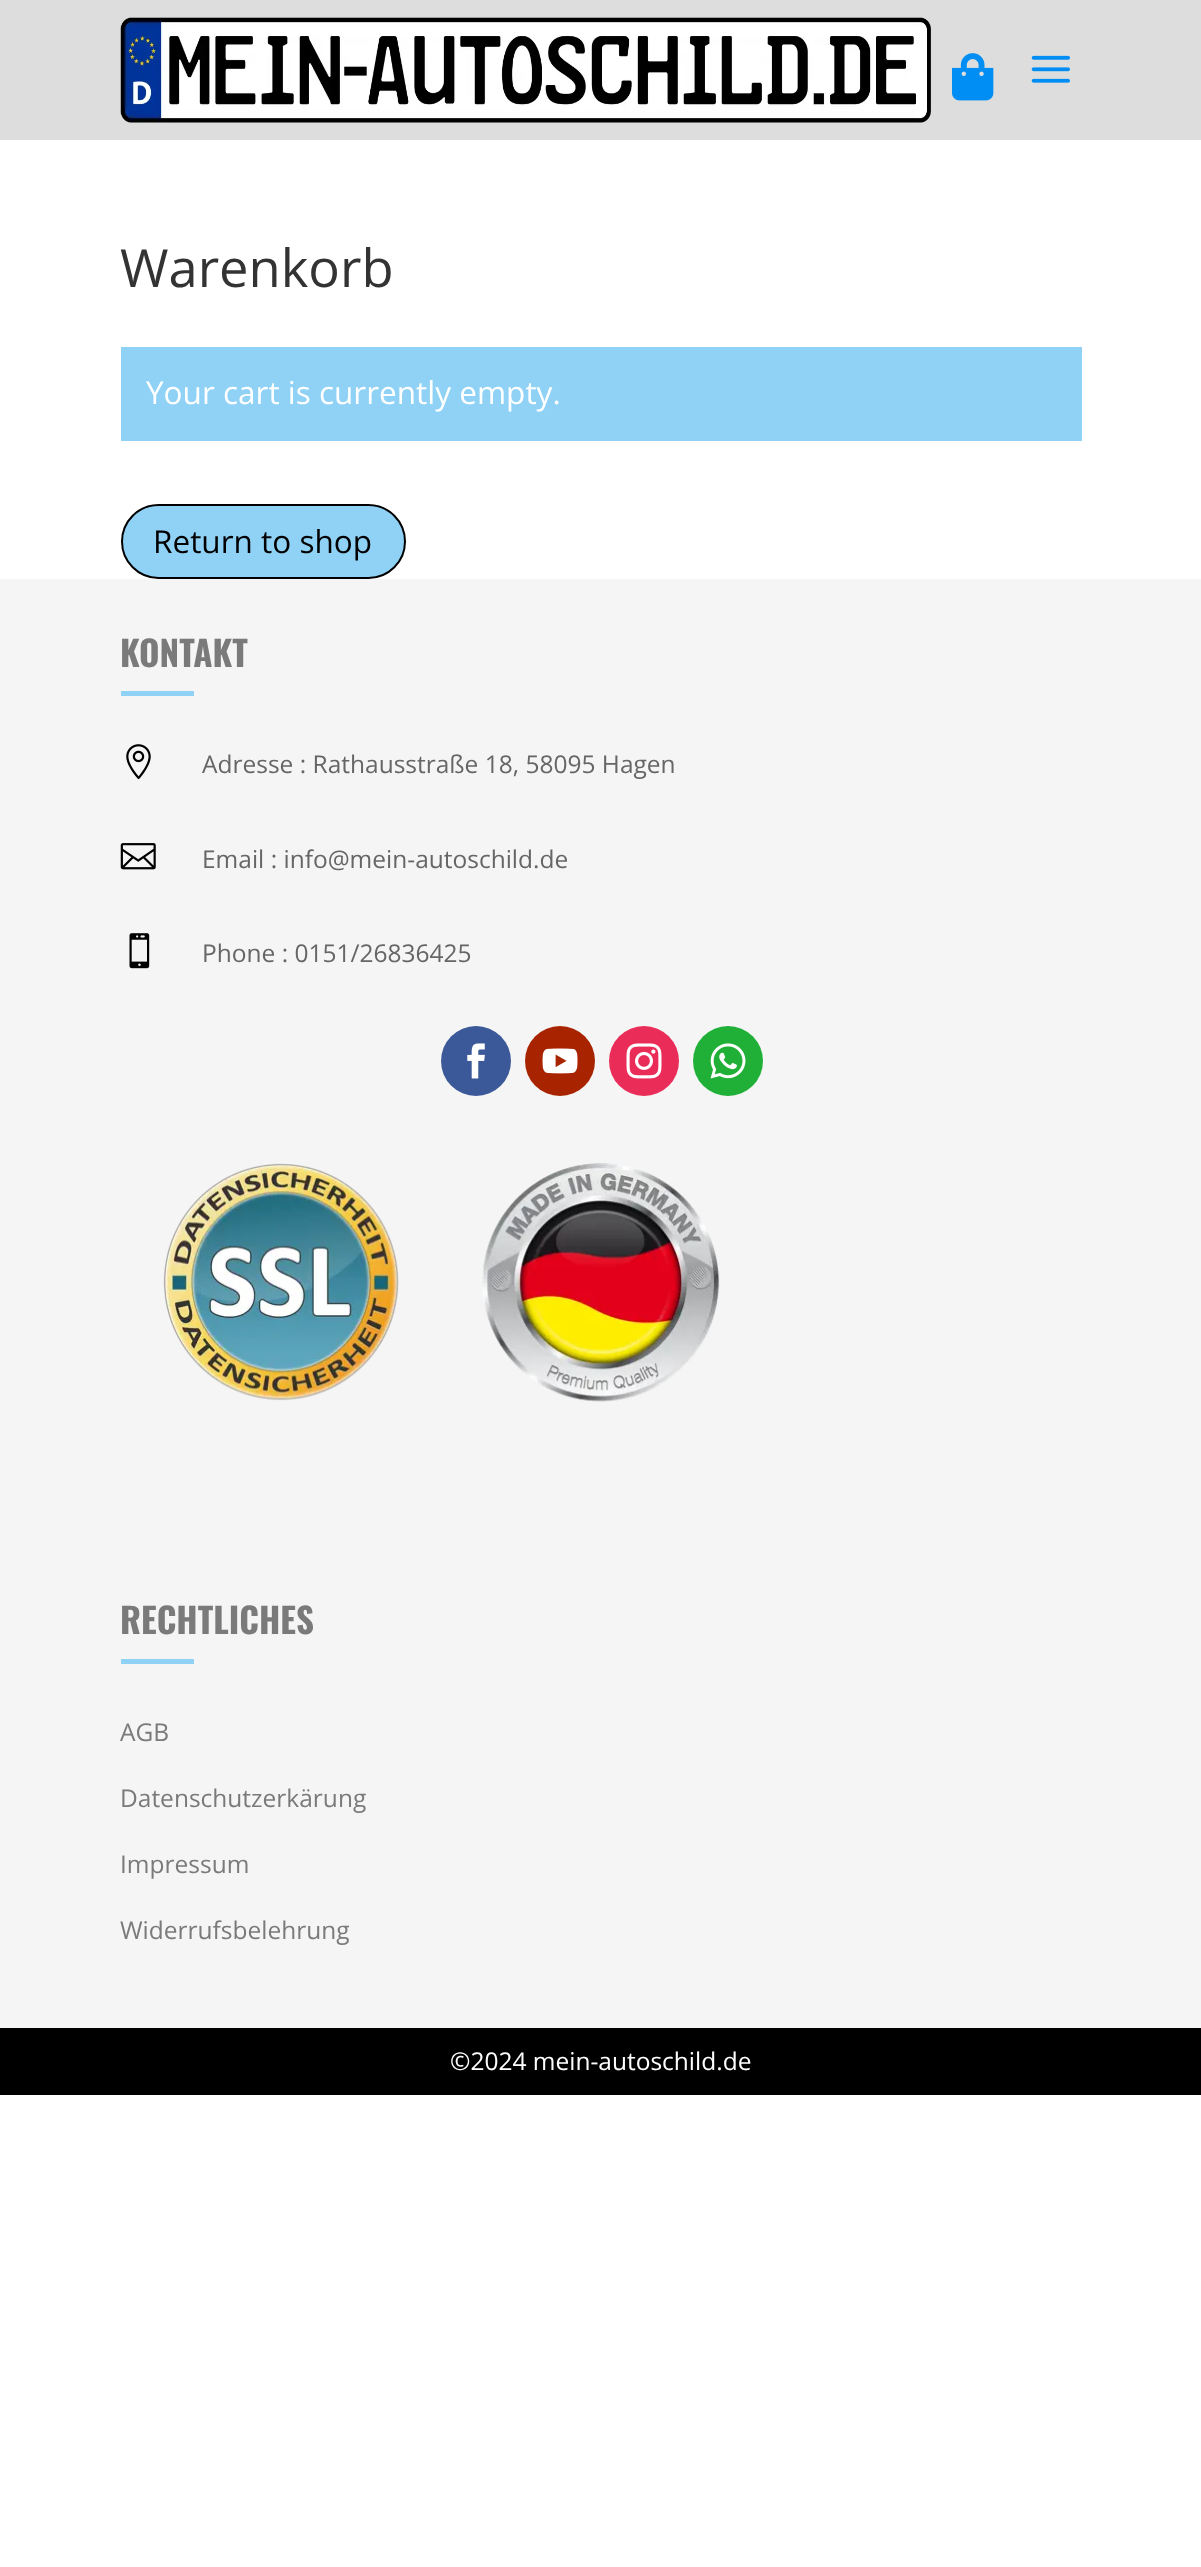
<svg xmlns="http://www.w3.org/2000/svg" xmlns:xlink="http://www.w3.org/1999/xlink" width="1201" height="2567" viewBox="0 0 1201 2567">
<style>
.cls-1{font:52.5px Open Sans;fill:#333333}
.cls-2{font:31.5px Open Sans;fill:#ffffff}
.cls-3{font:31.5px Open Sans;fill:#000000}
.cls-4{font:bold 35px Oswald;fill:#7a7a7a}
.cls-5{font:24.5px Open Sans;fill:#666666}
.cls-6{font:24.5px Open Sans;fill:#7a7a7a}
.cls-7{font:24.5px Open Sans;fill:#ffffff}
</style>
<rect width="100%" height="100%" fill="#ffffff"/>
<rect fill="#dddddd" x="0" y="0" width="1201" height="140"/>
<image xlink:href="image0.png" x="120" y="17" width="811" height="106"/>
<image xlink:href="image1.png" x="952" y="53" width="42" height="48"/>
<image xlink:href="image2.png" x="1031" y="55" width="39" height="28"/>
<rect fill="#90d2f5" x="121" y="347" width="961" height="94"/>
<rect fill="#90d2f5" stroke="#000000" stroke-width="2" x="122" y="505" width="283" height="73" rx="36.5"/>
<rect fill="#f5f5f5" x="0" y="579" width="1201" height="1449"/>
<rect fill="#90d2f5" x="121" y="691" width="73" height="5"/>
<image xlink:href="image3.png" x="126" y="744" width="25" height="36"/>
<image xlink:href="image4.png" x="120" y="843" width="36" height="27"/>
<image xlink:href="image5.png" x="129" y="933" width="21" height="36"/>
<circle fill="#3b5998" cx="476" cy="1061" r="35"/>
<image xlink:href="image6.png" x="467" y="1043" width="18" height="36"/>
<circle fill="#a82400" cx="560" cy="1061" r="35"/>
<image xlink:href="image7.png" x="542" y="1048" width="36" height="26"/>
<circle fill="#ea2c59" cx="644" cy="1061" r="35"/>
<image xlink:href="image8.png" x="626" y="1043" width="36" height="36"/>
<circle fill="#20b038" cx="728" cy="1061" r="35"/>
<image xlink:href="image9.png" x="710" y="1043" width="36" height="36"/>
<image xlink:href="image10.png" x="163" y="1163" width="236" height="238"/>
<image xlink:href="image11.png" x="482" y="1163" width="238" height="239"/>
<rect fill="#90d2f5" x="121" y="1659" width="73" height="5"/>
<rect fill="#000000" x="0" y="2028" width="1201" height="67"/>
<text class="cls-1" x="120" y="287">Warenkorb</text>
<text class="cls-2" x="146" y="404">Your cart is currently empty.</text>
<text class="cls-3" x="153" y="553">Return to shop</text>
<text class="cls-4" x="120" y="667">KONTAKT</text>
<text class="cls-5" x="202" y="773">Adresse : Rathausstraße 18, 58095 Hagen</text>
<text class="cls-5" x="202" y="868">Email : info@mein-autoschild.de</text>
<text class="cls-5" x="202" y="962">Phone : 0151/26836425</text>
<text class="cls-4" x="120" y="1634">RECHTLICHES</text>
<text class="cls-6" x="120" y="1741">AGB</text>
<text class="cls-6" x="120" y="1807">Datenschutzerkärung</text>
<text class="cls-6" x="120" y="1873">Impressum</text>
<text class="cls-6" x="120" y="1939">Widerrufsbelehrung</text>
<text class="cls-7" x="450" y="2070">©2024 mein-autoschild.de</text>
</svg>
